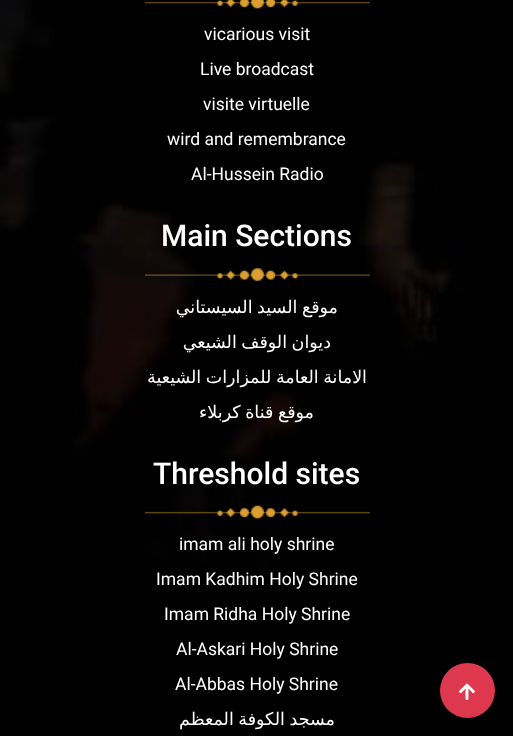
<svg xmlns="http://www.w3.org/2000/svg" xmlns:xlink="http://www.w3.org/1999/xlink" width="513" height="736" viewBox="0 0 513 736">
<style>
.cls-1{font:17.5px Roboto;fill:#ffffff}
.cls-2{font:500 30px Roboto;fill:#ffffff}
.cls-3{font:17.5px DejaVu Sans;direction:rtl;fill:#ffffff}
</style>
<rect width="100%" height="100%" fill="#ffffff"/>
<image xlink:href="image0.png" x="0" y="0" width="513" height="736"/>
<image xlink:href="image1.png" x="145" y="0" width="225" height="9"/>
<image xlink:href="image2.png" x="145" y="268" width="225" height="13"/>
<image xlink:href="image3.png" x="145" y="505" width="225" height="14"/>
<circle fill="#de384e" cx="467.5" cy="690.5" r="27.5"/>
<image xlink:href="image4.png" x="459" y="683" width="16" height="17"/>
<text class="cls-1" x="204" y="40">vicarious visit</text>
<text class="cls-1" x="200" y="75">Live broadcast</text>
<text class="cls-1" x="203" y="110">visite virtuelle</text>
<text class="cls-1" x="167" y="145">wird and remembrance</text>
<text class="cls-1" x="191" y="180">Al-Hussein Radio</text>
<text class="cls-2" x="161" y="246">Main Sections</text>
<text class="cls-3" x="338" y="313" word-spacing="-1">موقع السيد السيستاني</text>
<text class="cls-3" x="331" y="348" word-spacing="-1">ديوان الوقف الشيعي</text>
<text class="cls-3" x="367" y="383" word-spacing="-1">الامانة العامة للمزارات الشيعية</text>
<text class="cls-3" x="314" y="418" word-spacing="-1">موقع قناة كربلاء</text>
<text class="cls-2" x="153" y="484">Threshold sites</text>
<text class="cls-1" x="179" y="550">imam ali holy shrine</text>
<text class="cls-1" x="156" y="585">Imam Kadhim Holy Shrine</text>
<text class="cls-1" x="164" y="620">Imam Ridha Holy Shrine</text>
<text class="cls-1" x="176" y="655">Al-Askari Holy Shrine</text>
<text class="cls-1" x="175" y="690">Al-Abbas Holy Shrine</text>
<text class="cls-3" x="335" y="725" word-spacing="-1">مسجد الكوفة المعظم</text>
</svg>
